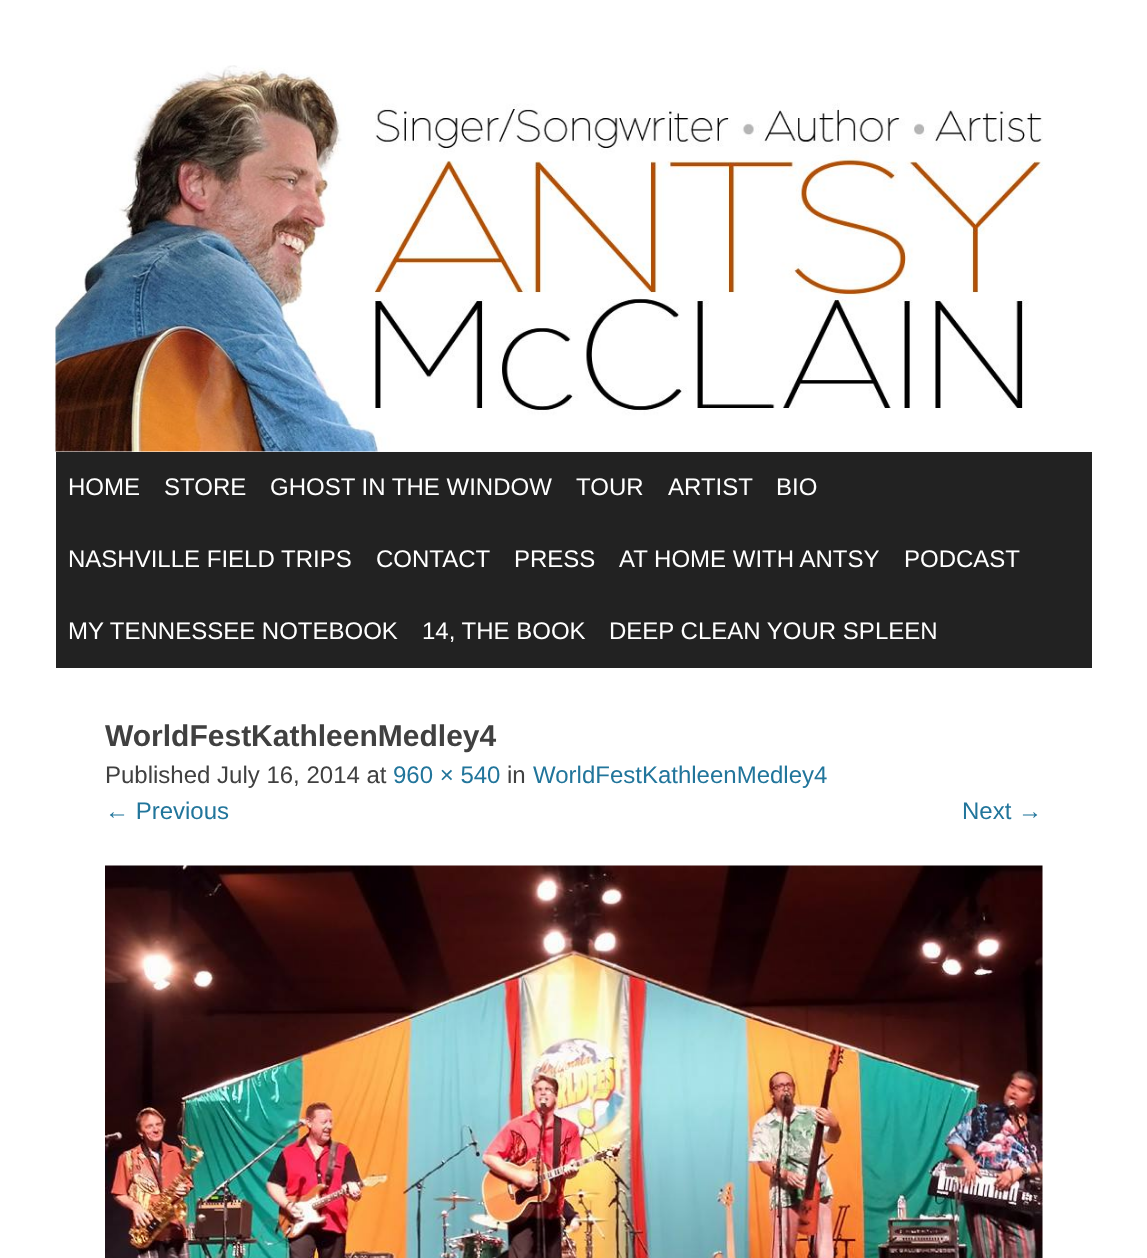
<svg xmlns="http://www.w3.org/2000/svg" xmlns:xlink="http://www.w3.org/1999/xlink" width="1147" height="1258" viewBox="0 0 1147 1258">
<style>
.cls-1{font:24px Liberation Sans;fill:#ffffff}
.cls-2{font:bold 30px Liberation Sans;fill:#404040}
.cls-3{font:24px Liberation Sans;fill:#404040}
.cls-4{font:24px Liberation Sans;fill:#21759b}
</style>
<rect width="100%" height="100%" fill="#ffffff"/>
<image xlink:href="image0.png" x="55" y="65" width="988" height="387"/>
<rect fill="#222222" x="56" y="452" width="1036" height="216"/>
<image xlink:href="image1.png" x="105" y="865" width="938" height="393"/>
<text class="cls-1" x="68" y="495">HOME</text>
<text class="cls-1" x="164" y="495">STORE</text>
<text class="cls-1" x="270" y="495">GHOST IN THE WINDOW</text>
<text class="cls-1" x="576" y="495">TOUR</text>
<text class="cls-1" x="668" y="495">ARTIST</text>
<text class="cls-1" x="776" y="495">BIO</text>
<text class="cls-1" x="68" y="567">NASHVILLE FIELD TRIPS</text>
<text class="cls-1" x="376" y="567">CONTACT</text>
<text class="cls-1" x="514" y="567">PRESS</text>
<text class="cls-1" x="619" y="567">AT HOME WITH ANTSY</text>
<text class="cls-1" x="904" y="567">PODCAST</text>
<text class="cls-1" x="68" y="639">MY TENNESSEE NOTEBOOK</text>
<text class="cls-1" x="422" y="639">14, THE BOOK</text>
<text class="cls-1" x="609" y="639">DEEP CLEAN YOUR SPLEEN</text>
<text class="cls-2" x="105" y="746">WorldFestKathleenMedley4</text>
<text class="cls-3" x="105" y="783">Published July 16, 2014 at</text>
<text class="cls-4" x="393" y="783">960 × 540</text>
<text class="cls-3" x="507" y="783">in</text>
<text class="cls-4" x="533" y="783">WorldFestKathleenMedley4</text>
<text class="cls-4" x="105" y="819">← Previous</text>
<text class="cls-4" x="962" y="819">Next →</text>
</svg>
